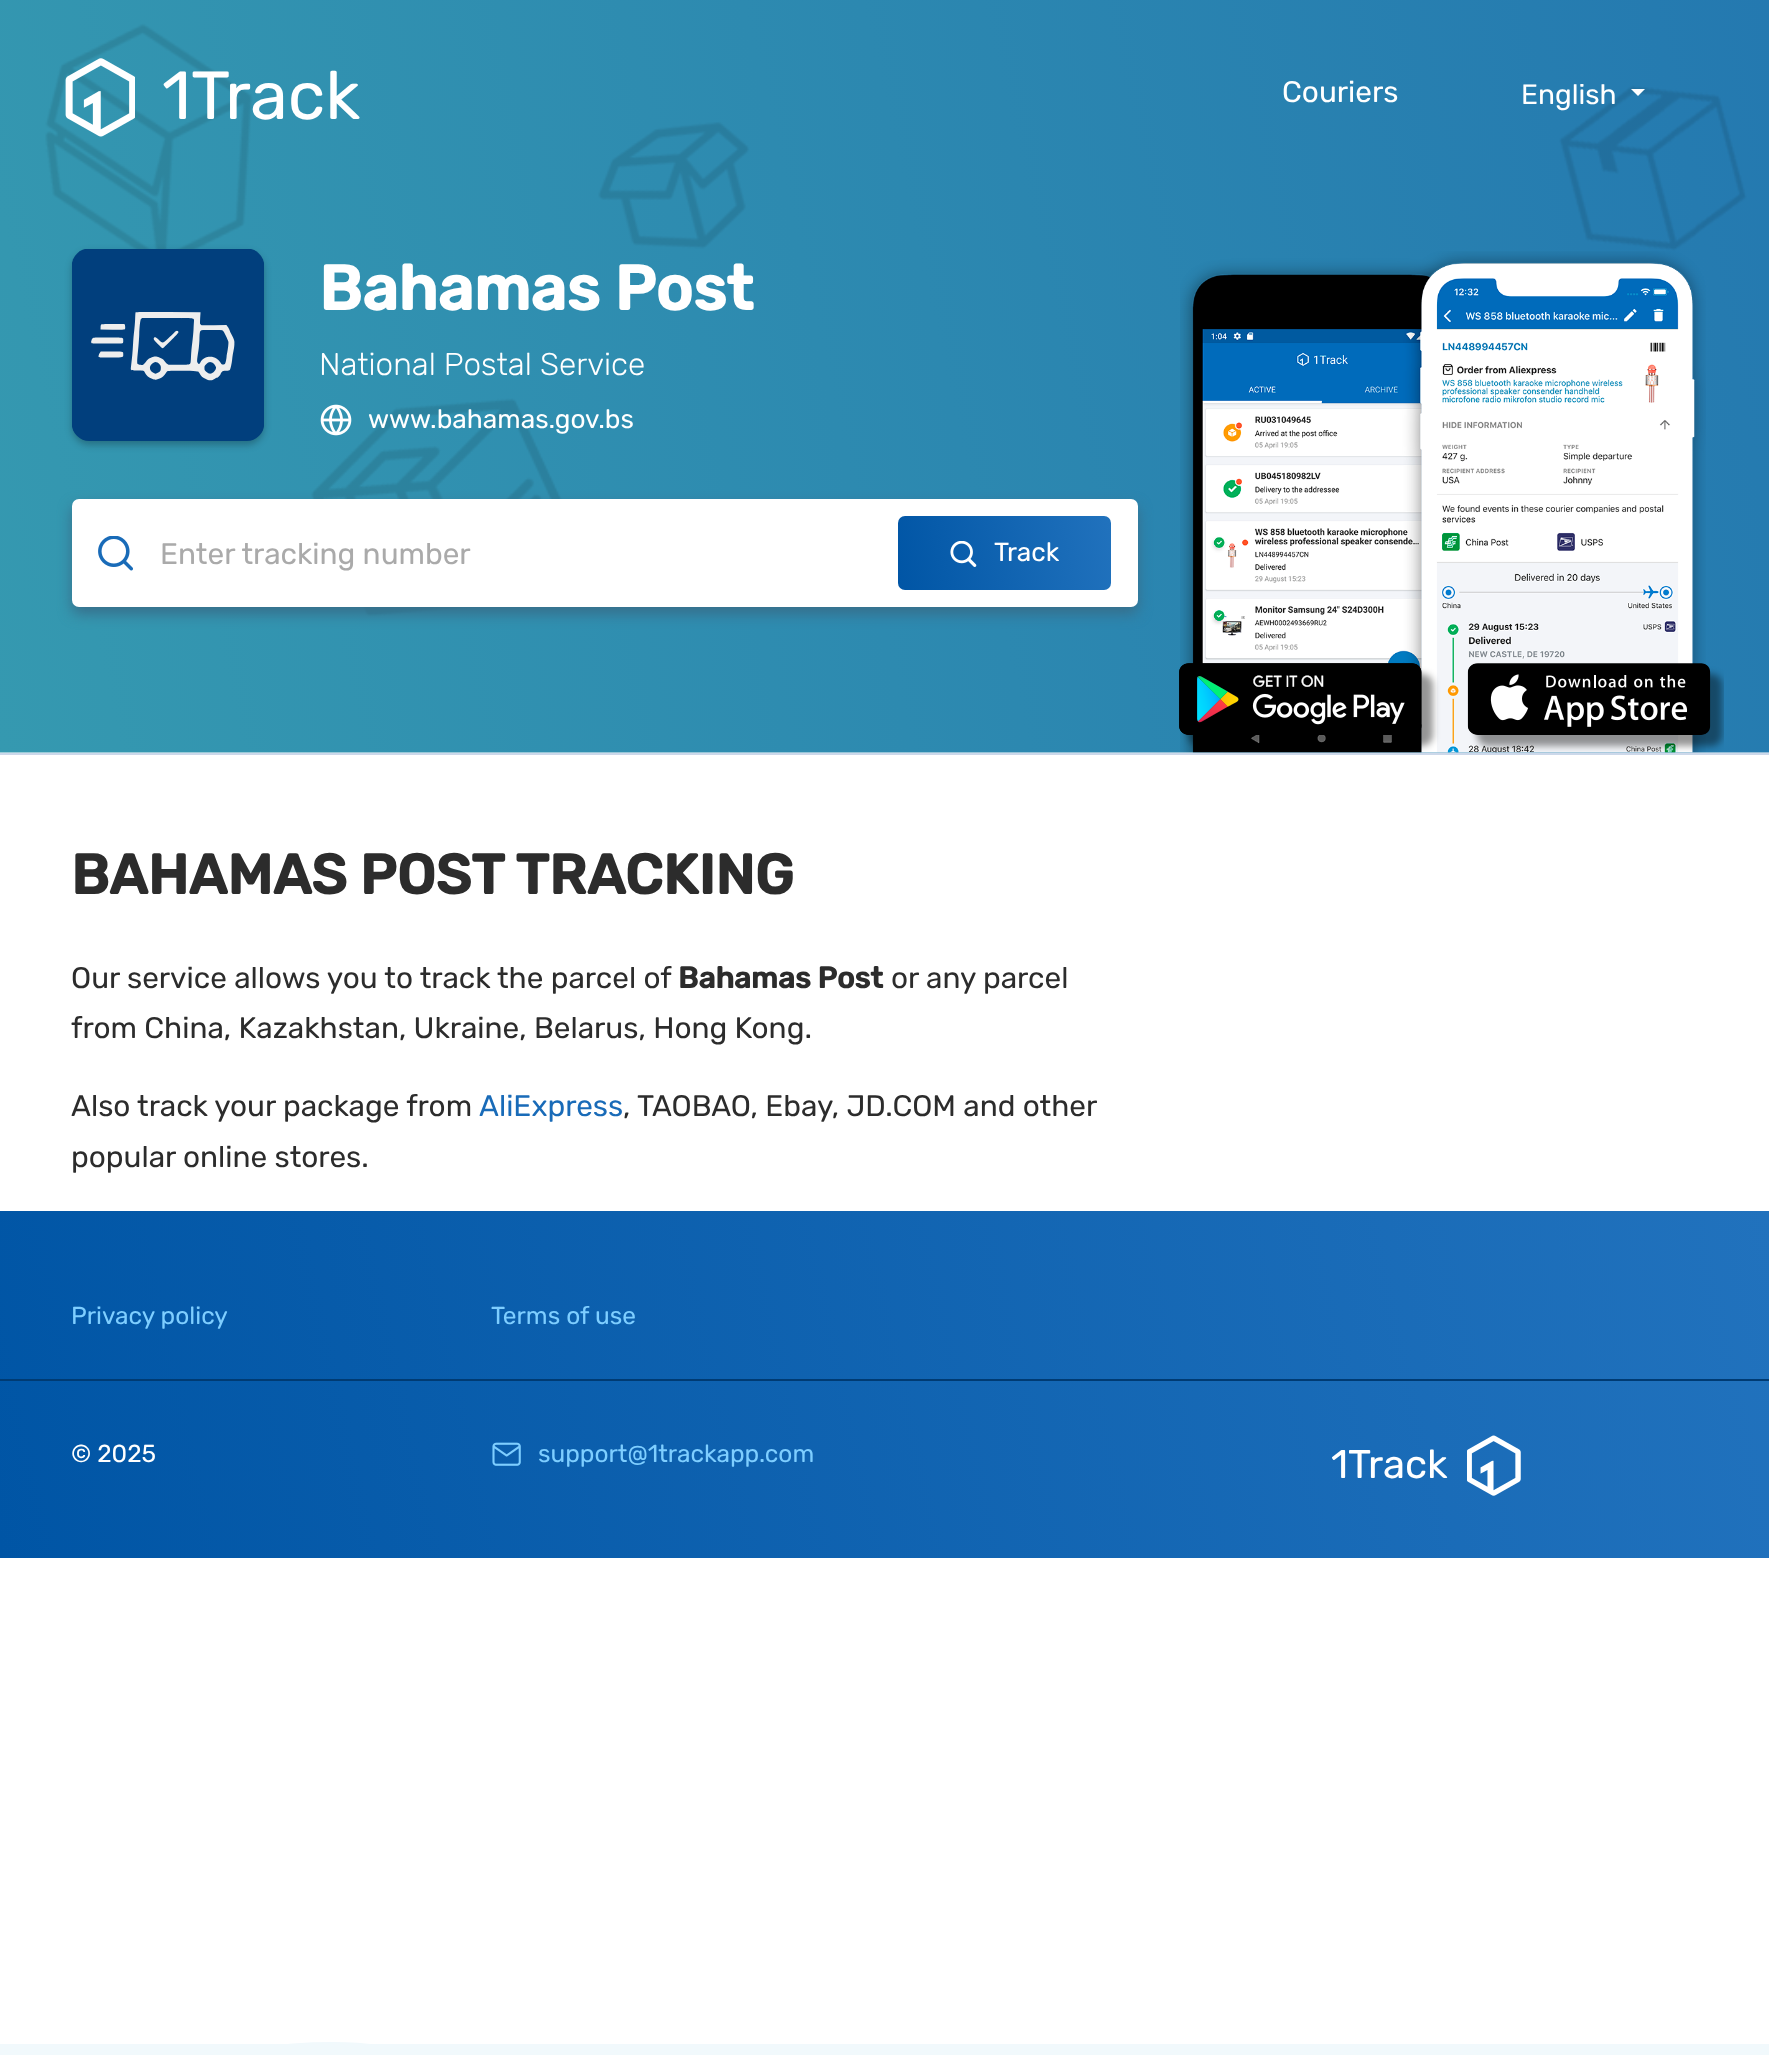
<svg xmlns="http://www.w3.org/2000/svg" xmlns:xlink="http://www.w3.org/1999/xlink" width="1769" height="2055" viewBox="0 0 1769 2055">
<style>
.cls-1{font:68px Rubik;fill:#ffffff}
.cls-2{font:29.75px Rubik;fill:#ffffff}
.cls-3{font:28px Rubik;fill:#ffffff}
.cls-4{font:bold 63px Rubik;fill:#ffffff}
.cls-5{font:300 31.5px Rubik;fill:#ffffff}
.cls-6{font:26.25px Rubik;fill:#ffffff}
.cls-7{font:29.75px Rubik;fill:#aaaaaa}
.cls-8{font:bold 56px Rubik;fill:#2c2c2c}
.cls-9{font:29.75px Rubik;fill:#2c2c2c}
.cls-10{font:bold 29.75px Rubik;fill:#2c2c2c}
.cls-11{font:29.75px Rubik;fill:#196bb8}
.cls-12{font:24.5px Rubik;fill:#7eceff}
.cls-13{font:24.5px Rubik;fill:#ffffff}
.cls-14{font:40px Rubik;fill:#ffffff}
</style>
<defs>
<linearGradient id="g1" gradientUnits="userSpaceOnUse" x1="1114" y1="530" x2="895" y2="576"><stop offset="0" stop-color="#2172bd"/><stop offset="1" stop-color="#0055a5"/></linearGradient>
<clipPath id="clip1"><rect x="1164" y="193" width="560" height="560"/></clipPath>
<linearGradient id="g2" gradientUnits="userSpaceOnUse" x1="1764" y1="1187" x2="5.3" y2="1581"><stop offset="0" stop-color="#2172bd"/><stop offset="1" stop-color="#0055a5"/></linearGradient>
</defs>
<rect width="100%" height="100%" fill="#ffffff"/>
<image xlink:href="image0.png" x="0" y="0" width="1769" height="753"/>
<image xlink:href="image1.png" x="65" y="58" width="70" height="79"/>
<path fill="#ffffff" d="M1631 89H1645L1638 96Z"/>
<rect fill="#000000" fill-opacity="0.25" filter="blur(3.5px)" x="72" y="252" width="192" height="193" rx="18"/>
<image xlink:href="image2.png" x="72" y="249" width="192" height="192"/>
<image xlink:href="image3.png" x="320" y="404" width="32" height="32"/>
<rect fill="#376e8a" filter="blur(7px)" x="72" y="506" width="1066" height="108" rx="7"/>
<rect fill="#ffffff" x="72" y="499" width="1066" height="108" rx="7"/>
<image xlink:href="image4.png" x="98" y="536" width="35" height="35"/>
<rect fill="url(#g1)" x="898" y="516" width="213" height="74" rx="7"/>
<image xlink:href="image5.png" x="950" y="541" width="27" height="26"/>
<image xlink:href="image6.png" x="1180" y="251" width="526" height="502"/>
<rect fill="#ccd8ea" x="0" y="753" width="1769" height="2"/>
<rect fill="#000000" fill-opacity="0.41" filter="blur(3.5px)" x="1188" y="674" width="245" height="72" rx="11"/>
<image xlink:href="image7.png" x="1179" y="663" width="243" height="72"/>
<g clip-path="url(#clip1)">
<rect fill="#000000" fill-opacity="0.41" filter="blur(3.5px)" x="1477" y="674" width="245" height="72" rx="11"/>
</g>
<image xlink:href="image8.png" x="1467" y="663" width="244" height="72"/>
<rect fill="url(#g2)" x="0" y="1211" width="1769" height="347"/>
<rect fill="#003b73" x="0" y="1379" width="1769" height="2"/>
<image xlink:href="image9.png" x="492" y="1442" width="29" height="24"/>
<image xlink:href="image10.png" x="1467" y="1435" width="54" height="61"/>
<rect fill="#f1f9fc" x="0" y="2044" width="1769" height="11"/>
<path fill="#f1f9fc" d="M333 2042C455 2042 555 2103 555 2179V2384H0V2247C0 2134 149 2042 333 2042Z"/>
<text class="cls-1" x="162" y="119">1Track</text>
<text class="cls-2" x="1282" y="102">Couriers</text>
<text class="cls-3" x="1521" y="104">English</text>
<text class="cls-4" x="319" y="310">Bahamas Post</text>
<text class="cls-5" x="319" y="375">National Postal Service</text>
<text class="cls-6" x="368" y="428">www.bahamas.gov.bs</text>
<text class="cls-7" x="160" y="564">Enter tracking number</text>
<text class="cls-6" x="994" y="561">Track</text>
<text class="cls-8" x="71" y="894">BAHAMAS POST TRACKING</text>
<text class="cls-9" x="71" y="988">Our service allows you to track the parcel of</text>
<text class="cls-10" x="678" y="988">Bahamas Post</text>
<text class="cls-9" x="891" y="988">or any parcel</text>
<text class="cls-9" x="71" y="1038">from China, Kazakhstan, Ukraine, Belarus, Hong Kong.</text>
<text class="cls-9" x="71" y="1116">Also track your package from</text>
<text class="cls-11" x="479" y="1116">AliExpress</text>
<text class="cls-9" x="623" y="1116">, TAOBAO, Ebay, JD.COM and other</text>
<text class="cls-9" x="71" y="1167">popular online stores.</text>
<text class="cls-12" x="71" y="1324">Privacy policy</text>
<text class="cls-12" x="491" y="1324">Terms of use</text>
<text class="cls-13" x="71" y="1462">© 2025</text>
<text class="cls-12" x="538" y="1462">support@1trackapp.com</text>
<text class="cls-14" x="1331" y="1478">1Track</text>
</svg>
